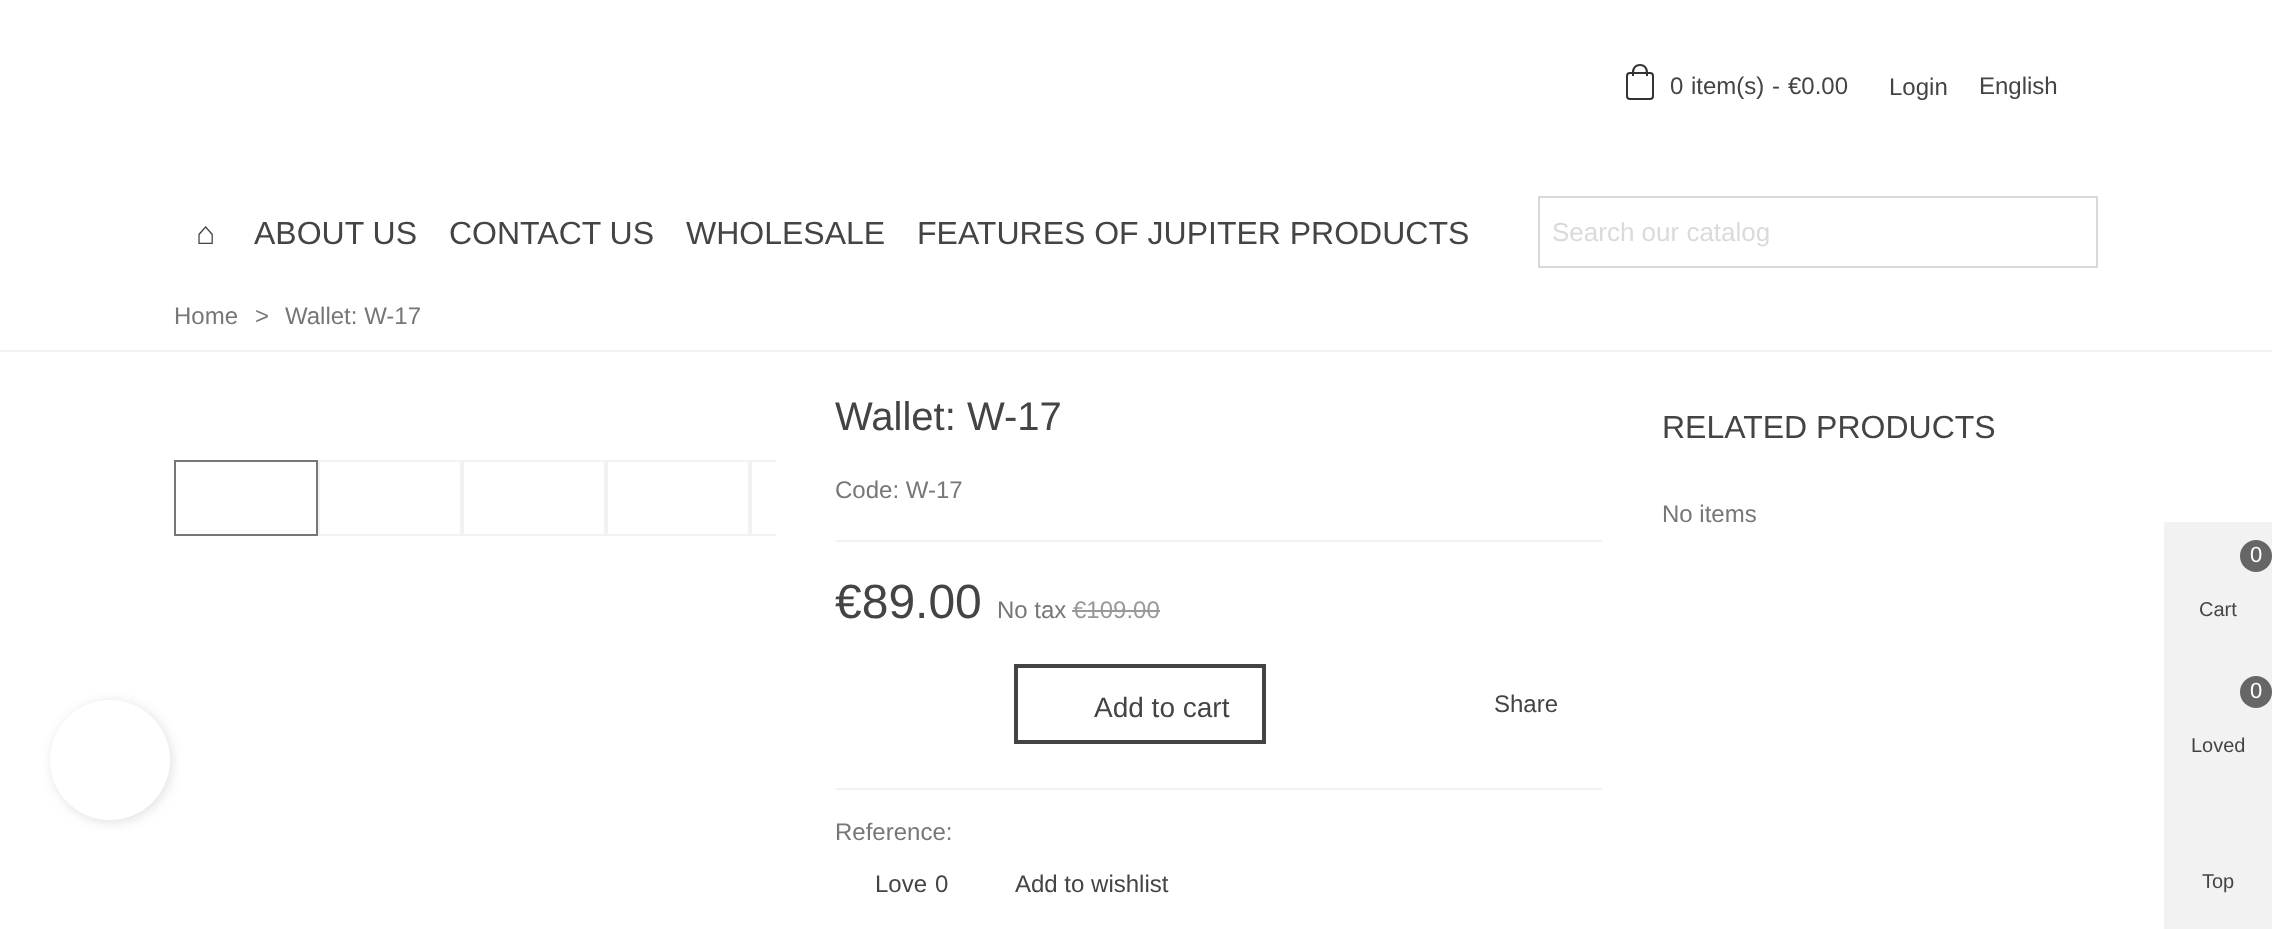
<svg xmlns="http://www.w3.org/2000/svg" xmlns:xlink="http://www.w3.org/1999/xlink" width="2272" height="929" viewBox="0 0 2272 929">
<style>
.cls-1{font:24px Liberation Sans;fill:#444444}
.cls-2{font:32px Liberation Serif;fill:#444444}
.cls-3{font:32px Liberation Sans;fill:#444444}
.cls-4{font:26px Liberation Sans;fill:#dadada}
.cls-5{font:24px Liberation Sans;fill:#777777}
.cls-6{font:40px Liberation Sans;fill:#444444}
.cls-7{font:48px Liberation Sans;fill:#444444}
.cls-8{font:24px Liberation Sans;fill:#999999}
.cls-9{font:28px Liberation Sans;fill:#444444}
.cls-10{font:22px Liberation Sans;fill:#ffffff}
.cls-11{font:20px Liberation Sans;fill:#444444}
</style>
<defs>
<clipPath id="clip1"><rect x="174" y="460" width="602" height="76"/></clipPath>
</defs>
<rect width="100%" height="100%" fill="#ffffff"/>
<rect fill="none" stroke="#333333" stroke-width="2" x="1627" y="73" width="26" height="26" rx="3"/>
<path fill="#333333" fill-rule="evenodd" d="M1640 64C1644.5 64 1648 67.5 1648 72V76H1632V72C1632 67.5 1635.5 64 1640 64ZM1640 66C1646 66 1646 71.5 1646 76H1634C1634 71.5 1634 66 1640 66Z"/>
<rect fill="none" stroke="#d9d9d9" stroke-width="2" x="1539" y="197" width="558" height="70"/>
<rect fill="#f2f2f2" x="0" y="350" width="2272" height="2"/>
<rect fill="#e0e0e0" filter="blur(6px)" x="52" y="702" width="120" height="120" rx="60"/>
<circle fill="#ffffff" cx="110" cy="760" r="60"/>
<rect fill="none" stroke="#777777" stroke-width="2" x="175" y="461" width="142" height="74"/>
<rect fill="none" stroke="#f2f2f2" stroke-width="2" x="319" y="461" width="142" height="74"/>
<rect fill="none" stroke="#f2f2f2" stroke-width="2" x="463" y="461" width="142" height="74"/>
<rect fill="none" stroke="#f2f2f2" stroke-width="2" x="607" y="461" width="142" height="74"/>
<rect fill="#f2f2f2" x="836" y="540" width="766" height="2"/>
<rect fill="#999999" x="1072" y="610" width="88" height="2"/>
<rect fill="none" stroke="#444444" stroke-width="4" x="1016" y="666" width="248" height="76"/>
<rect fill="#f2f2f2" x="836" y="788" width="766" height="2"/>
<rect fill="#f2f2f2" x="2164" y="522" width="108" height="407"/>
<circle fill="#666666" cx="2256" cy="556" r="16"/>
<circle fill="#666666" cx="2256" cy="692" r="16"/>
<text class="cls-1" x="1670" y="94">0</text>
<text class="cls-1" x="1691" y="94">item(s)</text>
<text class="cls-1" x="1772" y="94">-</text>
<text class="cls-1" x="1788" y="94">€0.00</text>
<text class="cls-1" x="1889" y="95">Login</text>
<text class="cls-1" x="1979" y="94">English</text>
<text class="cls-2" x="196" y="244">⌂</text>
<text class="cls-3" x="254" y="244">ABOUT US</text>
<text class="cls-3" x="449" y="244">CONTACT US</text>
<text class="cls-3" x="686" y="244">WHOLESALE</text>
<text class="cls-3" x="917" y="244">FEATURES OF JUPITER PRODUCTS</text>
<text class="cls-4" x="1552" y="241">Search our catalog</text>
<text class="cls-5" x="174" y="324">Home</text>
<text class="cls-5" x="255" y="324">&gt;</text>
<text class="cls-5" x="285" y="324">Wallet: W-17</text>
<text class="cls-6" x="835" y="430">Wallet: W-17</text>
<text class="cls-5" x="835" y="498">Code: W-17</text>
<g clip-path="url(#clip1)">
<rect fill="none" stroke="#f2f2f2" stroke-width="2" x="751" y="461" width="142" height="74"/>
</g>
<text class="cls-7" x="835" y="618">€89.00</text>
<text class="cls-5" x="997" y="618">No tax</text>
<text class="cls-8" x="1073" y="618">€109.00</text>
<text class="cls-9" x="1094" y="717">Add to cart</text>
<text class="cls-1" x="1494" y="712">Share</text>
<text class="cls-5" x="835" y="840">Reference:</text>
<text class="cls-1" x="875" y="892">Love</text>
<text class="cls-1" x="935" y="892">0</text>
<text class="cls-1" x="1015" y="892">Add to wishlist</text>
<text class="cls-3" x="1662" y="438">RELATED PRODUCTS</text>
<text class="cls-5" x="1662" y="522">No items</text>
<text class="cls-10" x="2250" y="562">0</text>
<text class="cls-11" x="2199" y="616">Cart</text>
<text class="cls-10" x="2250" y="698">0</text>
<text class="cls-11" x="2191" y="752">Loved</text>
<text class="cls-11" x="2202" y="888">Top</text>
</svg>
